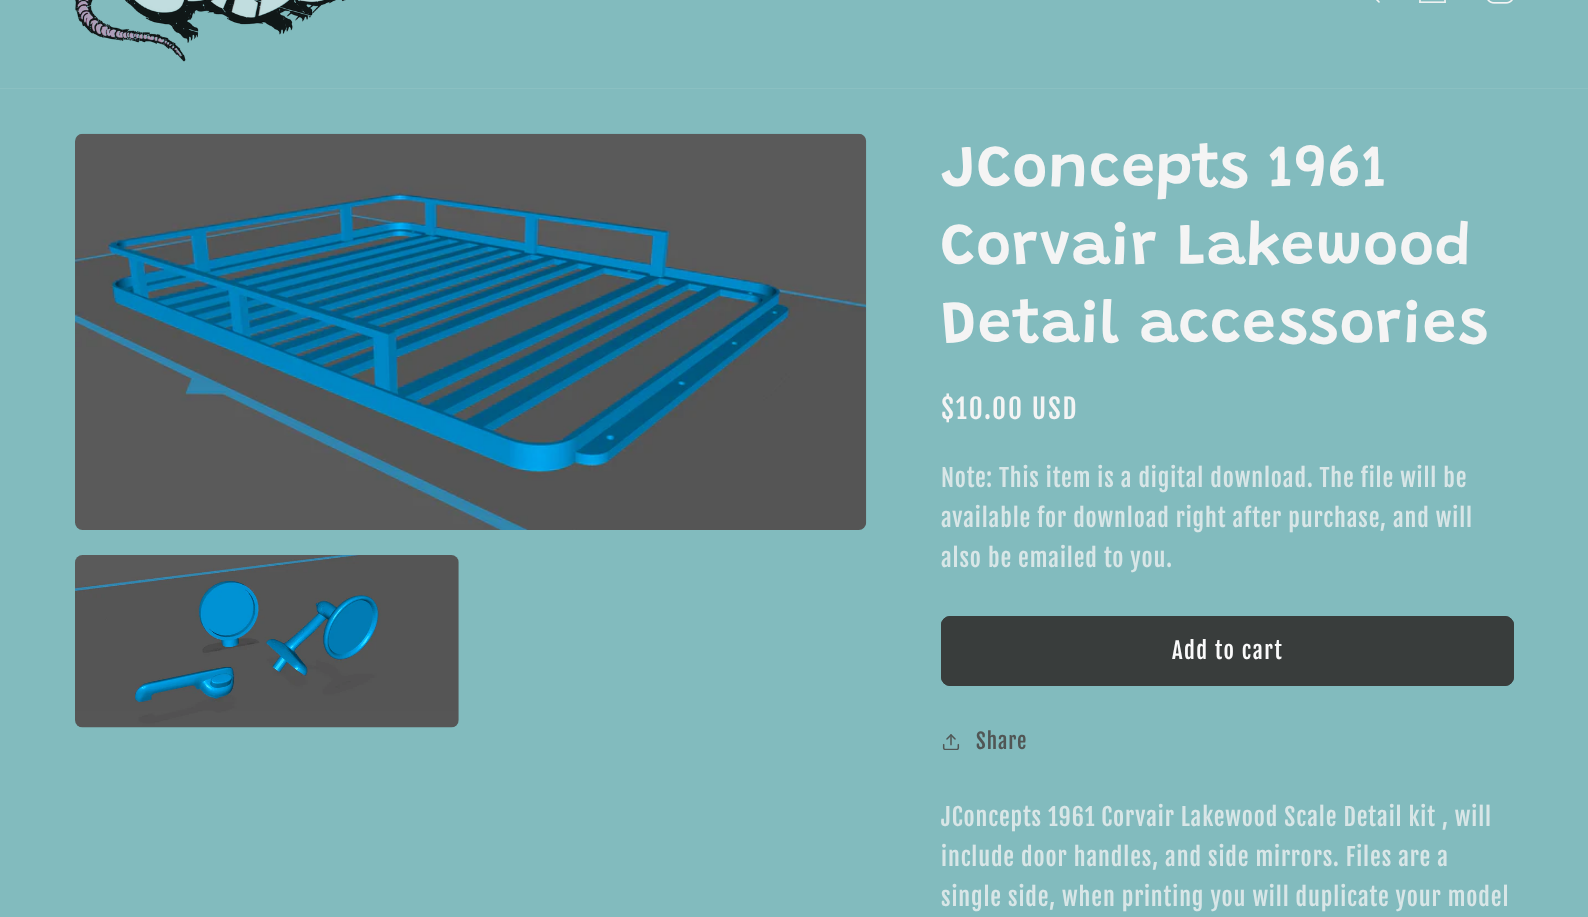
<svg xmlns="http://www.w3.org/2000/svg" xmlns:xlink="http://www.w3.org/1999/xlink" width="1588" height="917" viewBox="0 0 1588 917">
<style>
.cls-1{font:600 60px Grandstander;letter-spacing:0.9px;fill:#f4f4f4}
.cls-2{font:27px Fjalla One;letter-spacing:2px;fill:#f4f4f4}
.cls-3{font:24px Fjalla One;letter-spacing:0.9px;fill:#d8e6e7}
.cls-4{font:22.5px Fjalla One;letter-spacing:1.5px;fill:#fafafa}
.cls-5{font:21px Fjalla One;letter-spacing:0.9px;fill:#505655}
</style>
<rect width="100%" height="100%" fill="#82bbbe"/>
<rect fill="#8bc0c2" x="0" y="88" width="1588" height="1"/>
<image xlink:href="image0.png" x="75" y="0" width="271" height="62"/>
<image xlink:href="image1.png" x="1376" y="0" width="4" height="3"/>
<image xlink:href="image2.png" x="1419" y="0" width="27" height="3"/>
<image xlink:href="image3.png" x="1487" y="0" width="26" height="4"/>
<image xlink:href="image4.png" x="75" y="133" width="792" height="397"/>
<image xlink:href="image5.png" x="75" y="555" width="384" height="173"/>
<rect fill="#393d3c" x="941" y="616" width="573" height="70" rx="9"/>
<rect fill="none" stroke="#393d3c" x="941.5" y="616.5" width="572" height="69" rx="8.5"/>
<image xlink:href="image6.png" x="942" y="734" width="18" height="16"/>
<text class="cls-1"><tspan x="941" y="186">JConcepts 1961</tspan><tspan x="941" y="264">Corvair Lakewood</tspan><tspan x="941" y="342">Detail accessories</tspan></text>
<text class="cls-2" x="941" y="419">$10.00 USD</text>
<text class="cls-3"><tspan x="941" y="487">Note: This item is a digital download. The file will be</tspan><tspan x="941" y="527">available for download right after purchase, and will</tspan><tspan x="941" y="567">also be emailed to you.</tspan></text>
<text class="cls-4" x="1172" y="659">Add to cart</text>
<text class="cls-5" x="976" y="749">Share</text>
<text class="cls-3"><tspan x="941" y="826">JConcepts 1961 Corvair Lakewood Scale Detail kit , will</tspan><tspan x="941" y="866">include door handles, and side mirrors. Files are a</tspan><tspan x="941" y="906">single side, when printing you will duplicate your model</tspan></text>
</svg>
